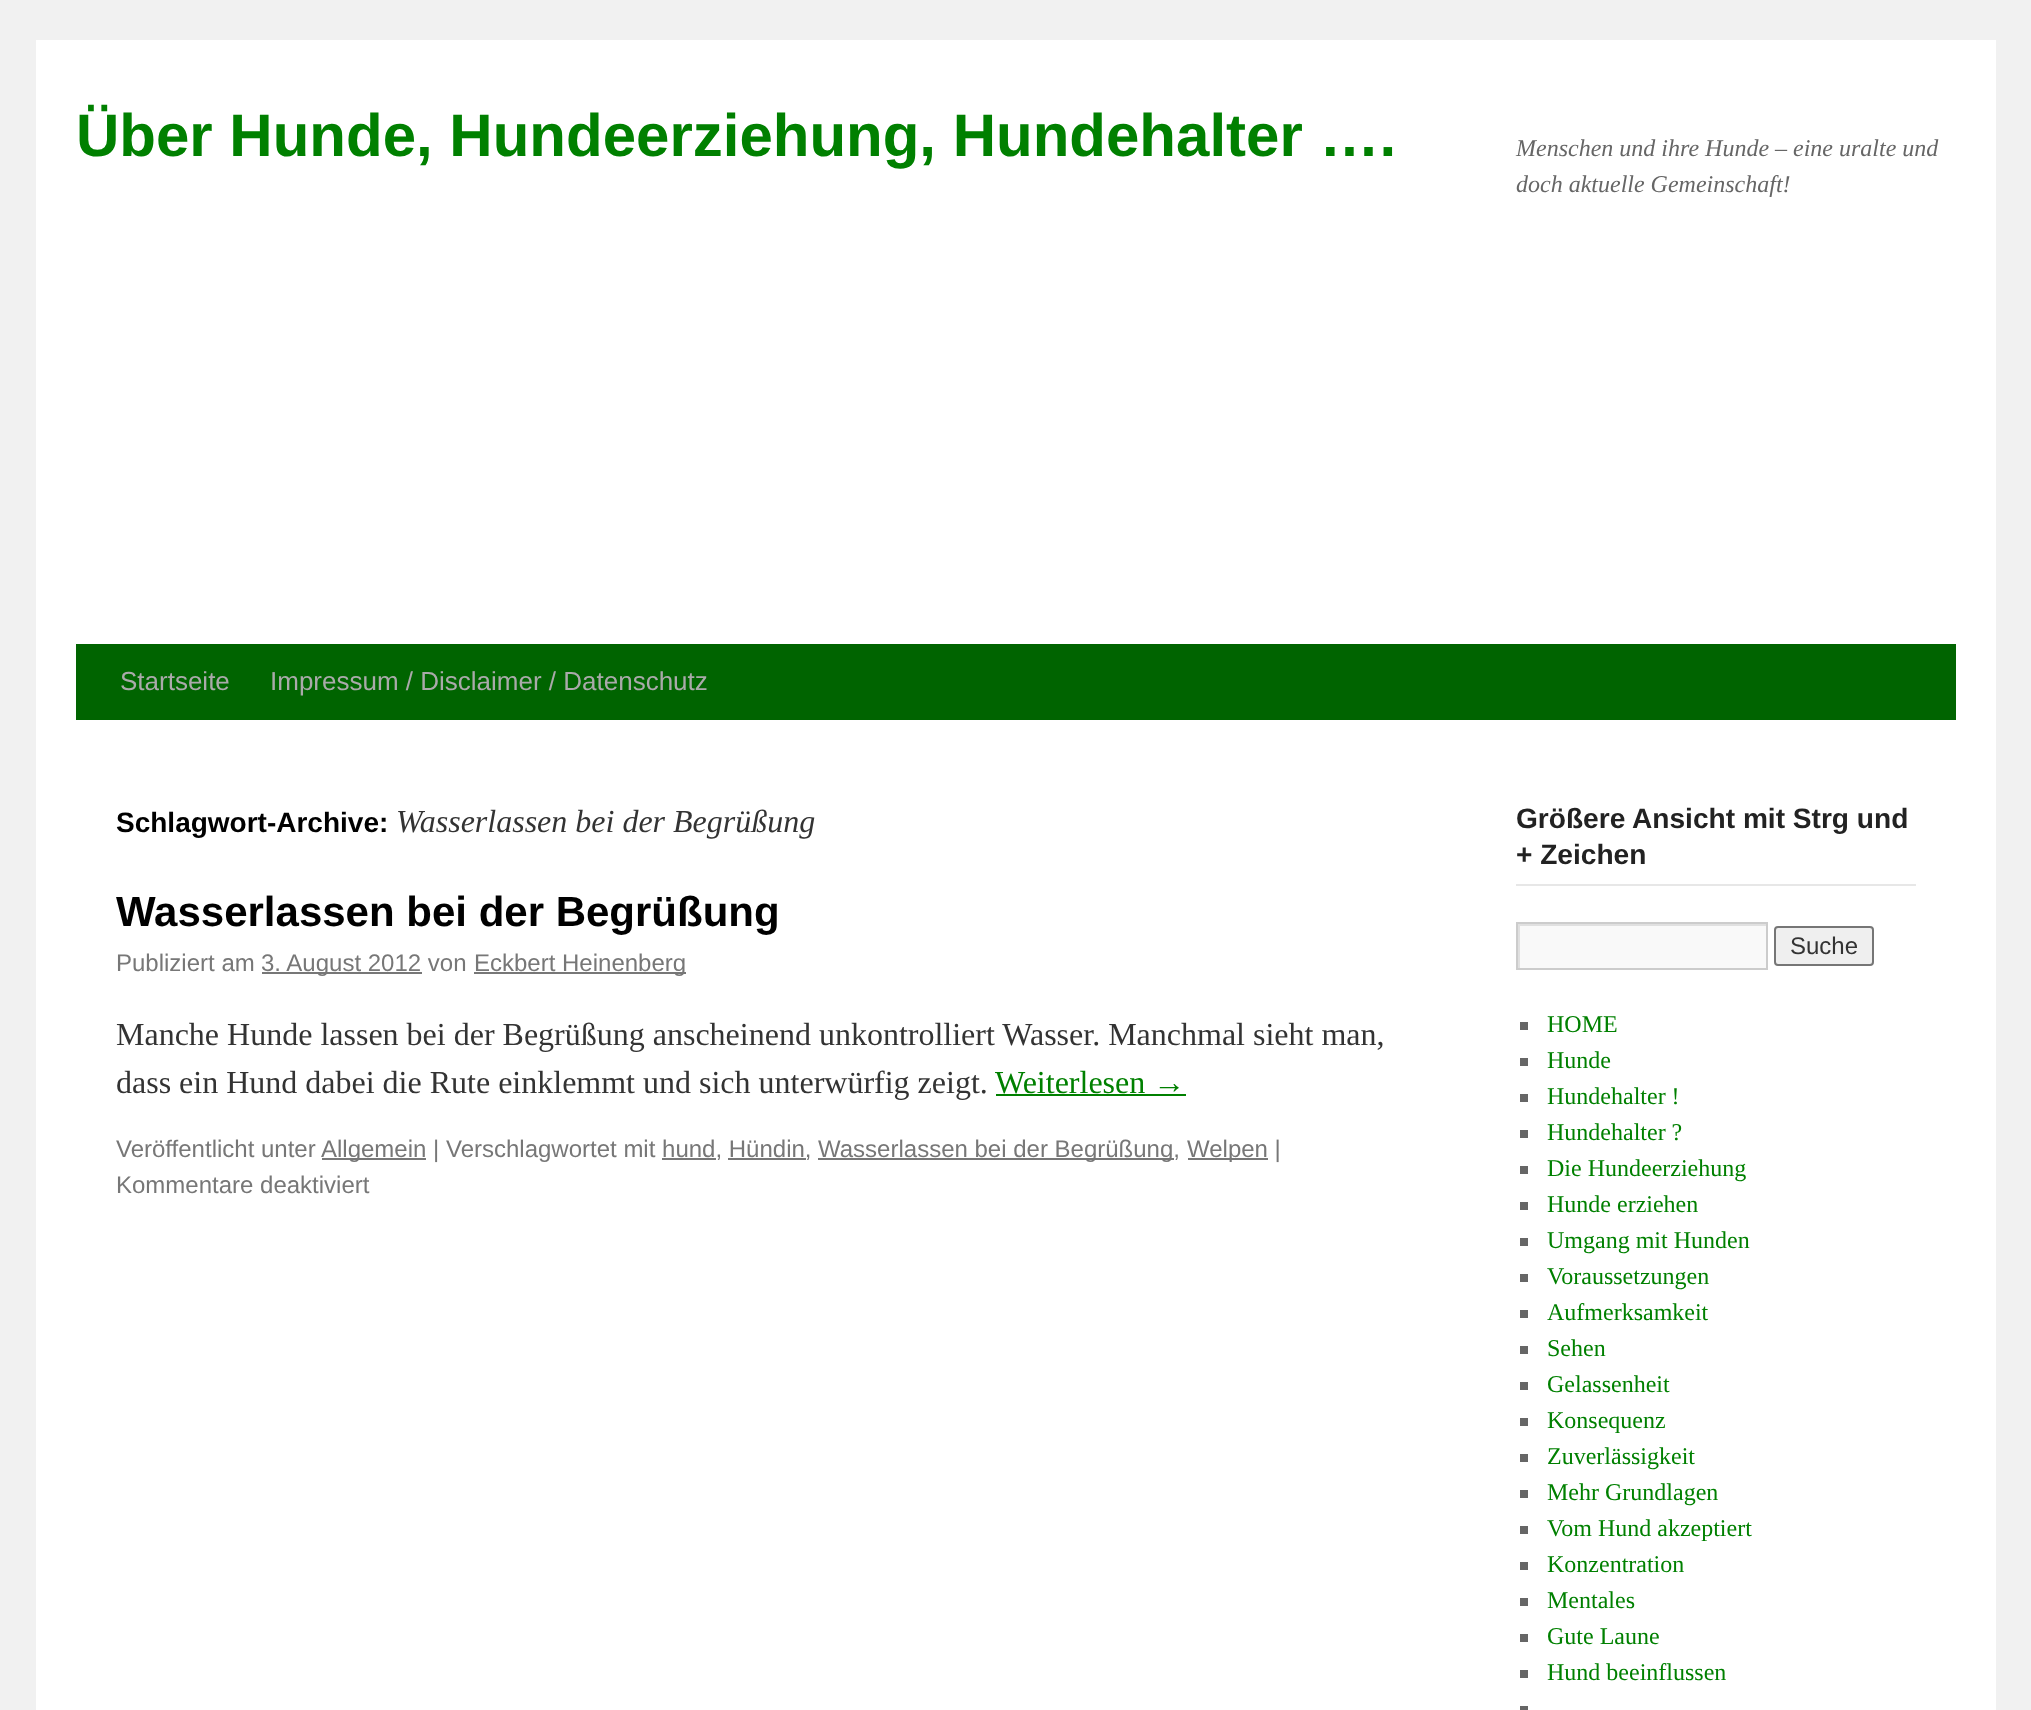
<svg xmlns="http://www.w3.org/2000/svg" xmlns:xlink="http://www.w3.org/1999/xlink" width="2031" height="1710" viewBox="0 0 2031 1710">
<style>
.cls-1{font:bold 60px Liberation Sans;fill:#008000}
.cls-2{font:italic 24px Liberation Serif;fill:#666666}
.cls-3{font:26px Liberation Sans;fill:#aaaaaa}
.cls-4{font:bold 28px Liberation Sans;fill:#000000}
.cls-5{font:italic 32px Liberation Serif;fill:#333333}
.cls-6{font:bold 42px Liberation Sans;fill:#000000}
.cls-7{font:24px Liberation Sans;fill:#777777}
.cls-8{font:32px Liberation Serif;fill:#333333}
.cls-9{font:32px Liberation Serif;fill:#008000}
.cls-10{font:bold 28.1px Liberation Sans;fill:#222222}
.cls-11{font:24px Liberation Sans;fill:#333333}
.cls-12{font:24px Liberation Serif;fill:#008000}
</style>
<defs>
<clipPath id="clip1"><rect x="1518" y="924" width="248" height="44"/></clipPath>
</defs>
<rect width="100%" height="100%" fill="#f1f1f1"/>
<rect fill="#ffffff" x="36" y="40" width="1960" height="1670"/>
<rect fill="#006400" x="76" y="644" width="1880" height="76"/>
<rect fill="#777777" x="262" y="972" width="160" height="2"/>
<rect fill="#777777" x="474" y="972" width="212" height="2"/>
<rect fill="#008000" x="996" y="1094" width="190" height="2"/>
<rect fill="#777777" x="322" y="1158" width="104" height="2"/>
<rect fill="#777777" x="662" y="1158" width="54" height="2"/>
<rect fill="#777777" x="728" y="1158" width="78" height="2"/>
<rect fill="#777777" x="818" y="1158" width="356" height="2"/>
<rect fill="#777777" x="1188" y="1158" width="80" height="2"/>
<rect fill="#e7e7e7" x="1516" y="884" width="400" height="2"/>
<rect fill="#f9f9f9" x="1520" y="926" width="246" height="42"/>
<g clip-path="url(#clip1)">
<path fill="#e0e0e0" fill-rule="evenodd" d="M1320 726H1964V1166H1320ZM1520 926H1768V970H1520Z"/>
</g>
<rect fill="none" stroke="#cccccc" stroke-width="2" x="1517" y="923" width="250" height="46"/>
<rect fill="#efefef" stroke="#767676" stroke-width="2" x="1775" y="927" width="98" height="38" rx="3"/>
<rect fill="#666666" x="1520" y="1022" width="8" height="8"/>
<rect fill="#666666" x="1520" y="1058" width="8" height="8"/>
<rect fill="#666666" x="1520" y="1094" width="8" height="8"/>
<rect fill="#666666" x="1520" y="1130" width="8" height="8"/>
<rect fill="#666666" x="1520" y="1166" width="8" height="8"/>
<rect fill="#666666" x="1520" y="1202" width="8" height="8"/>
<rect fill="#666666" x="1520" y="1238" width="8" height="8"/>
<rect fill="#666666" x="1520" y="1274" width="8" height="8"/>
<rect fill="#666666" x="1520" y="1310" width="8" height="8"/>
<rect fill="#666666" x="1520" y="1346" width="8" height="8"/>
<rect fill="#666666" x="1520" y="1382" width="8" height="8"/>
<rect fill="#666666" x="1520" y="1418" width="8" height="8"/>
<rect fill="#666666" x="1520" y="1454" width="8" height="8"/>
<rect fill="#666666" x="1520" y="1490" width="8" height="8"/>
<rect fill="#666666" x="1520" y="1526" width="8" height="8"/>
<rect fill="#666666" x="1520" y="1562" width="8" height="8"/>
<rect fill="#666666" x="1520" y="1598" width="8" height="8"/>
<rect fill="#666666" x="1520" y="1634" width="8" height="8"/>
<rect fill="#666666" x="1520" y="1670" width="8" height="8"/>
<rect fill="#666666" x="1520" y="1706" width="8" height="4"/>
<text class="cls-1" x="76" y="156">Über Hunde, Hundeerziehung, Hundehalter ….</text>
<text class="cls-2"><tspan x="1516" y="156">Menschen und ihre Hunde – eine uralte und</tspan><tspan x="1516" y="192">doch aktuelle Gemeinschaft!</tspan></text>
<text class="cls-3" x="120" y="690">Startseite</text>
<text class="cls-3" x="270" y="690">Impressum / Disclaimer / Datenschutz</text>
<text class="cls-4" x="116" y="832">Schlagwort-Archive:</text>
<text class="cls-5" x="396" y="832">Wasserlassen bei der Begrüßung</text>
<text class="cls-6" x="116" y="926">Wasserlassen bei der Begrüßung</text>
<text class="cls-7" x="116" y="971">Publiziert am</text>
<text class="cls-7" x="261" y="971">3. August 2012 von</text>
<text class="cls-7" x="474" y="971">Eckbert Heinenberg</text>
<text class="cls-8"><tspan x="116" y="1045">Manche Hunde lassen bei der Begrüßung anscheinend unkontrolliert Wasser. Manchmal sieht man,</tspan><tspan x="116" y="1093">dass ein Hund dabei die Rute einklemmt und sich unterwürfig zeigt.</tspan></text>
<text class="cls-9" x="995" y="1093">Weiterlesen →</text>
<text class="cls-7" x="116" y="1157">Veröffentlicht unter</text>
<text class="cls-7" x="321" y="1157">Allgemein | Verschlagwortet mit hund, Hündin,</text>
<text class="cls-7" x="818" y="1157">Wasserlassen bei der Begrüßung,</text>
<text class="cls-7" x="1187" y="1157">Welpen |</text>
<text class="cls-7" x="116" y="1193">Kommentare deaktiviert</text>
<text class="cls-10"><tspan x="1516" y="828">Größere Ansicht mit Strg und</tspan><tspan x="1516" y="864">+ Zeichen</tspan></text>
<text class="cls-11" x="1790" y="954">Suche</text>
<text class="cls-12"><tspan x="1547" y="1032">HOME</tspan><tspan x="1547" y="1068">Hunde</tspan><tspan x="1547" y="1104">Hundehalter !</tspan><tspan x="1547" y="1140">Hundehalter ?</tspan><tspan x="1547" y="1176">Die Hundeerziehung</tspan><tspan x="1547" y="1212">Hunde erziehen</tspan><tspan x="1547" y="1248">Umgang mit Hunden</tspan><tspan x="1547" y="1284">Voraussetzungen</tspan><tspan x="1547" y="1320">Aufmerksamkeit</tspan><tspan x="1547" y="1356">Sehen</tspan><tspan x="1547" y="1392">Gelassenheit</tspan><tspan x="1547" y="1428">Konsequenz</tspan><tspan x="1547" y="1464">Zuverlässigkeit</tspan><tspan x="1547" y="1500">Mehr Grundlagen</tspan><tspan x="1547" y="1536">Vom Hund akzeptiert</tspan><tspan x="1547" y="1572">Konzentration</tspan><tspan x="1547" y="1608">Mentales</tspan><tspan x="1547" y="1644">Gute Laune</tspan><tspan x="1547" y="1680">Hund beeinflussen</tspan></text>
</svg>
